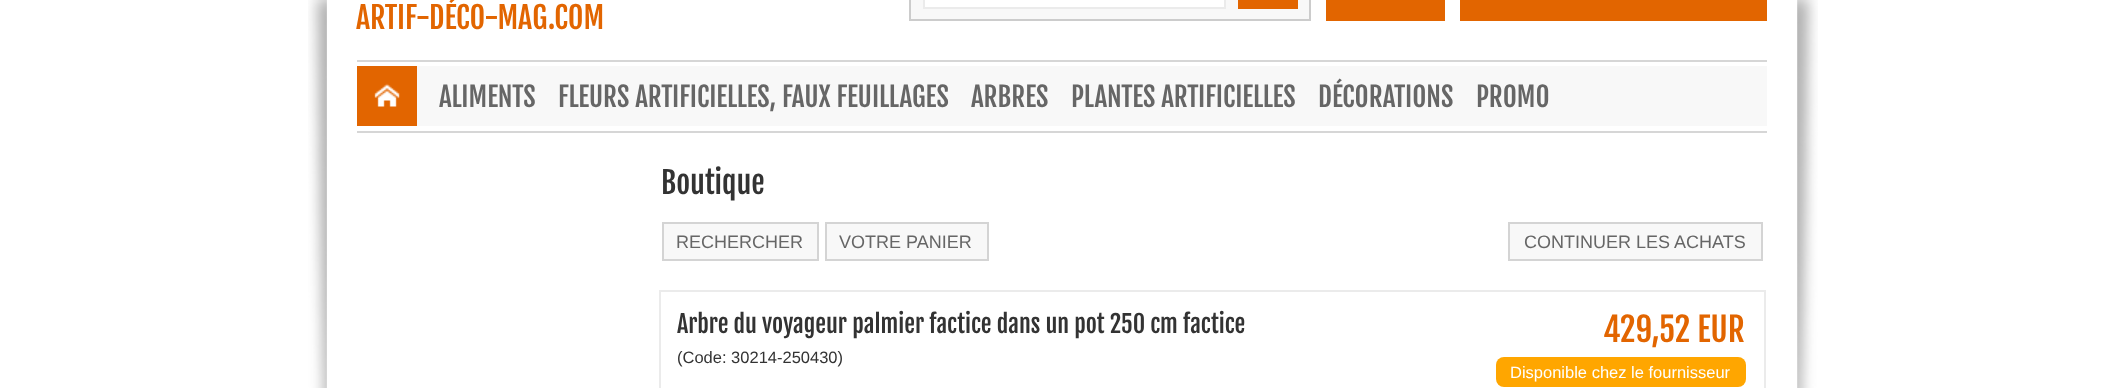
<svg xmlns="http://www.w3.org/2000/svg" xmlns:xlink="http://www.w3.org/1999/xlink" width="2122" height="388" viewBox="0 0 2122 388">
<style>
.cls-1{font:30px Fjalla One;fill:#e26500}
.cls-2{font:27px Fjalla One;fill:#666666}
.cls-3{font:30px Fjalla One;fill:#333333}
.cls-4{font:18px Liberation Sans;fill:#666666}
.cls-5{font:24px Fjalla One;fill:#333333}
.cls-6{font:16.5px Liberation Sans;fill:#333333}
.cls-7{font:33px Fjalla One;fill:#e26500}
.cls-8{font:16.5px Liberation Sans;fill:#ffffff}
</style>
<rect width="100%" height="100%" fill="#ffffff"/>
<image xlink:href="image0.png" x="308" y="0" width="1510" height="388"/>
<rect fill="#ffffff" x="327" y="0" width="1470" height="388"/>
<rect fill="#f8f8f8" stroke="#cccccc" stroke-width="2" x="910" y="-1" width="400" height="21"/>
<rect fill="#ffffff" stroke="#ebebeb" stroke-width="2" x="924" y="-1" width="301" height="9"/>
<rect fill="#e26500" x="1238" y="0" width="60" height="9"/>
<rect fill="#e26500" x="1326" y="0" width="119" height="21"/>
<rect fill="#e26500" x="1460" y="0" width="307" height="21"/>
<rect fill="#e26500" x="357" y="66" width="60" height="60"/>
<image xlink:href="image1.png" x="374" y="83" width="26" height="24"/>
<rect fill="#d6d6d6" x="357" y="60" width="1410" height="2"/>
<rect fill="#d6d6d6" x="357" y="131" width="1410" height="2"/>
<rect fill="#f8f8f8" x="417" y="66" width="1350" height="60"/>
<rect fill="#f8f8f8" stroke="#d4d4d4" stroke-width="2" x="663" y="223" width="155" height="37"/>
<rect fill="#f8f8f8" stroke="#d4d4d4" stroke-width="2" x="826" y="223" width="162" height="37"/>
<rect fill="#f8f8f8" stroke="#d4d4d4" stroke-width="2" x="1509" y="223" width="253" height="37"/>
<rect fill="none" stroke="#ebebeb" stroke-width="2" x="660" y="291" width="1105" height="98"/>
<rect fill="#ffa600" x="1496" y="357" width="250" height="30" rx="8"/>
<text class="cls-1" x="356" y="29">ARTIF-DÉCO-MAG.COM</text>
<text class="cls-2" x="439" y="107">ALIMENTS</text>
<text class="cls-2" x="558" y="107">FLEURS ARTIFICIELLES, FAUX FEUILLAGES</text>
<text class="cls-2" x="971" y="107">ARBRES</text>
<text class="cls-2" x="1071" y="107">PLANTES ARTIFICIELLES</text>
<text class="cls-2" x="1318" y="107">DÉCORATIONS</text>
<text class="cls-2" x="1476" y="107">PROMO</text>
<text class="cls-3" x="661" y="194">Boutique</text>
<text class="cls-4" x="676" y="248">RECHERCHER</text>
<text class="cls-4" x="839" y="248">VOTRE PANIER</text>
<text class="cls-4" x="1524" y="248">CONTINUER LES ACHATS</text>
<text class="cls-5" x="677" y="333">Arbre du voyageur palmier factice dans un pot 250 cm factice</text>
<text class="cls-6" x="677" y="363">(Code: 30214-250430)</text>
<text class="cls-7" x="1603" y="342">429,52 EUR</text>
<text class="cls-8" x="1510" y="378">Disponible chez le fournisseur</text>
</svg>
